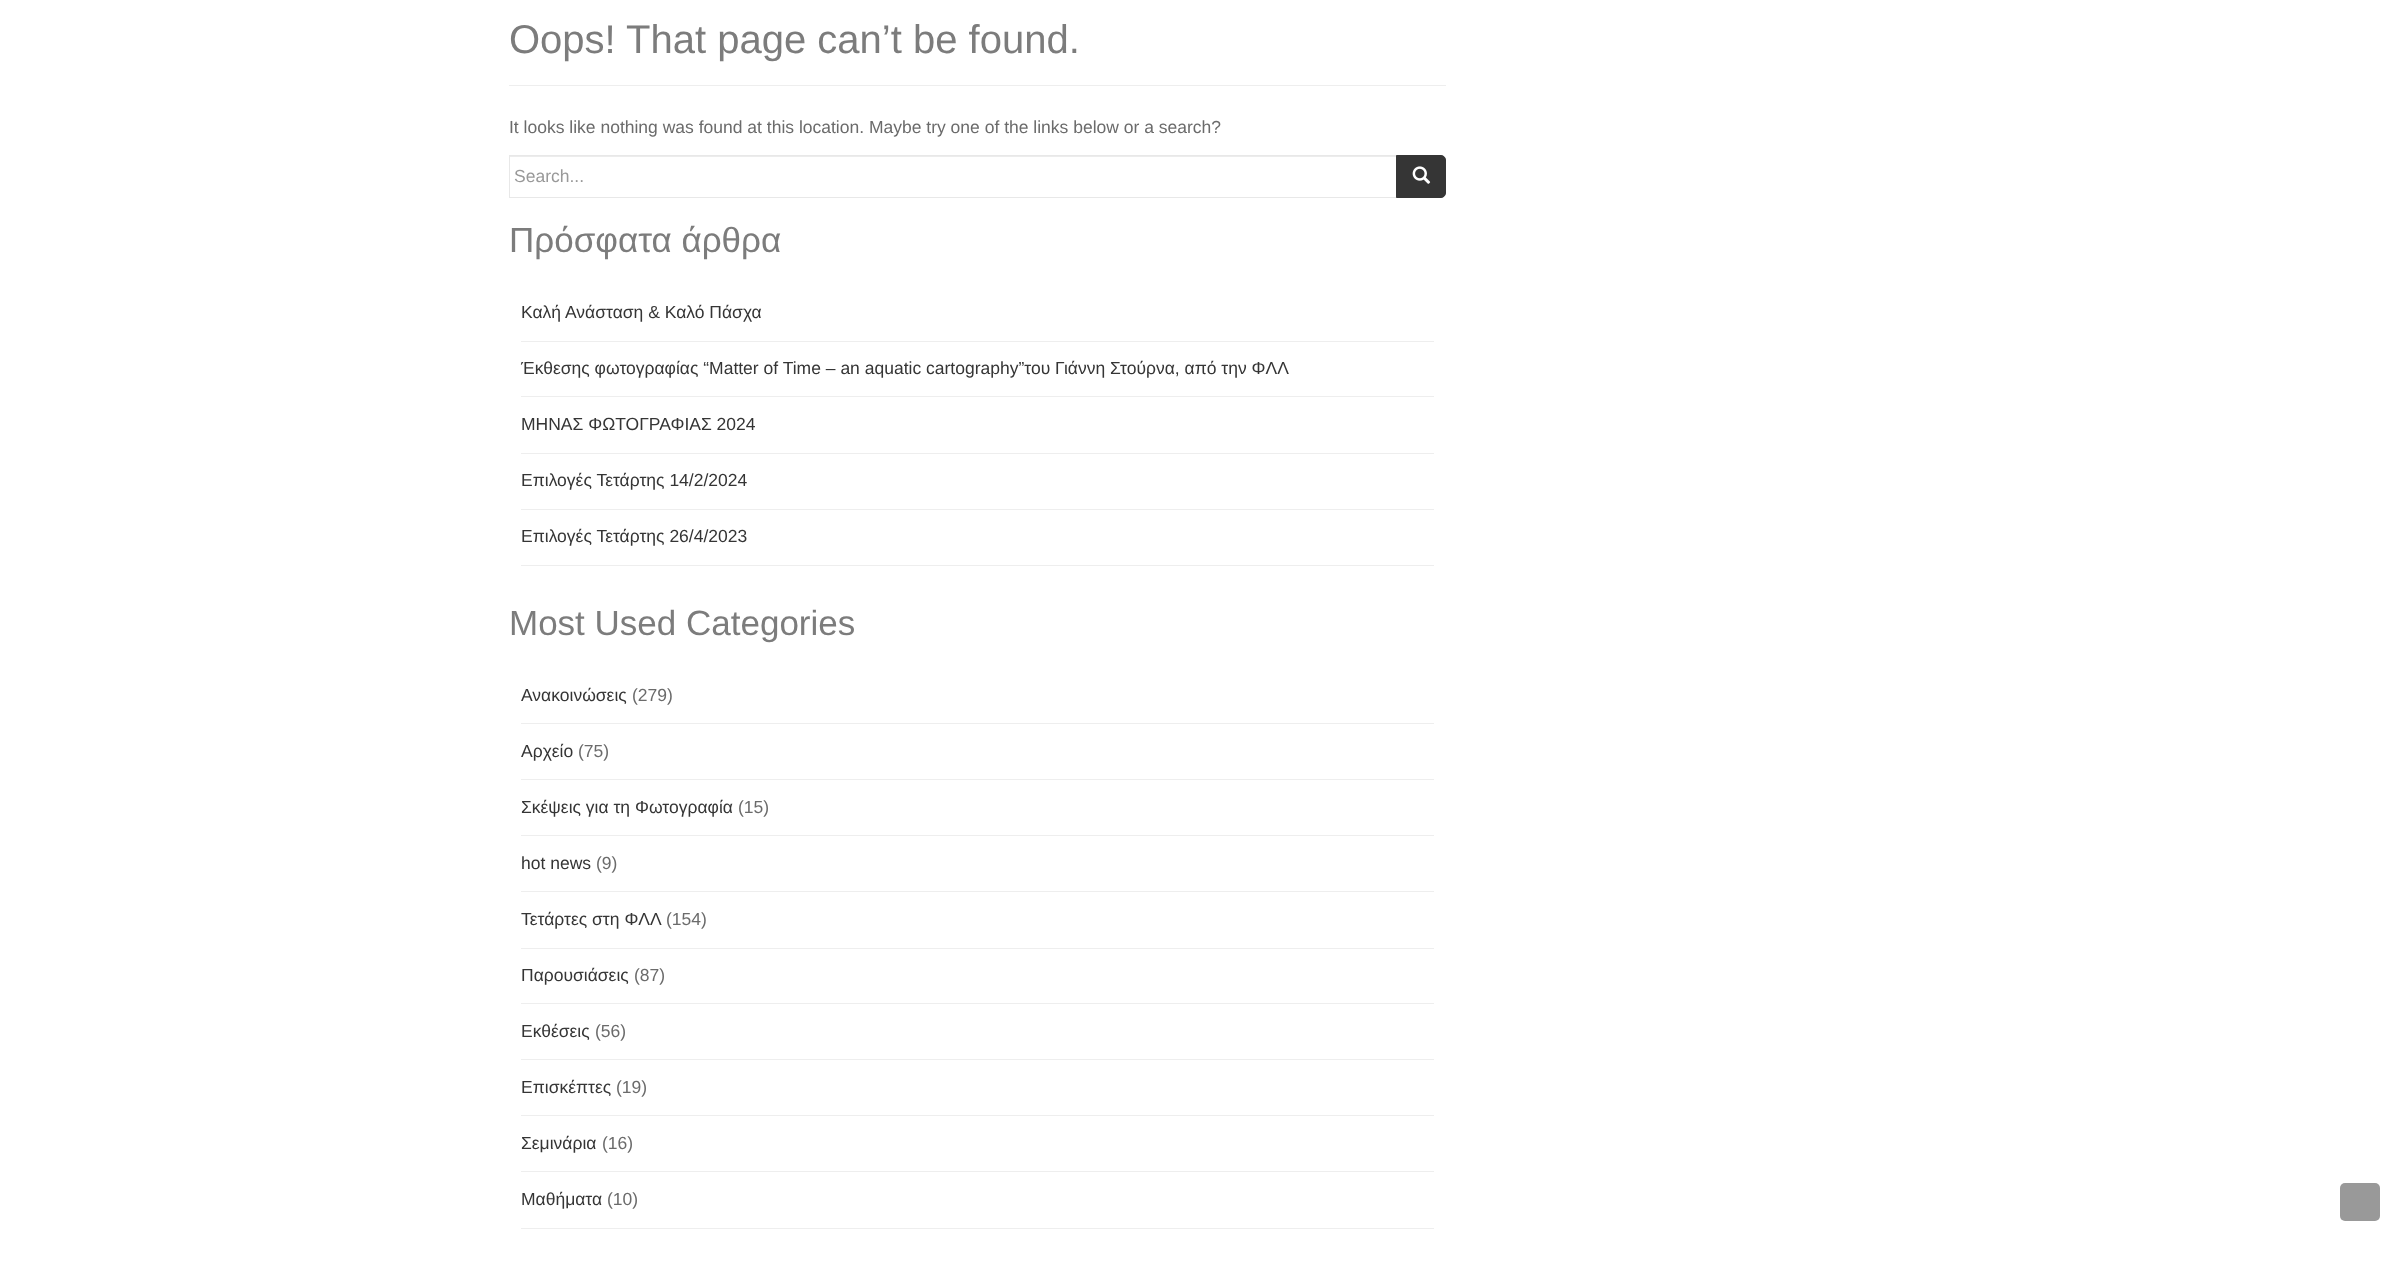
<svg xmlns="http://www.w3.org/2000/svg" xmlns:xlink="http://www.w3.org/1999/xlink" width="2405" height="1272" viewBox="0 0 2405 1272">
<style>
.cls-1{font:40px Liberation Sans;fill:#7c7c7c}
.cls-2{font:17.5px Liberation Sans;fill:#6b6b6b}
.cls-3{font:17.5px Liberation Sans;fill:#999999}
.cls-4{font:35px Liberation Sans;fill:#7c7c7c}
.cls-5{font:17.5px Liberation Sans;fill:#353535}
</style>
<rect width="100%" height="100%" fill="#ffffff"/>
<rect fill="#eeeeee" x="509" y="85" width="937" height="1"/>
<rect fill="#ececec" x="510" y="156" width="886" height="1"/>
<rect fill="none" stroke="#e8e8e8" x="509.5" y="155.5" width="888" height="42"/>
<path fill="#353535" stroke="#353535" d="M1396.5 155.5H1441C1443.5 155.5 1445.5 157.5 1445.5 160V193C1445.5 195.5 1443.5 197.5 1441 197.5H1396.5Z"/>
<image xlink:href="image0.png" x="1412" y="166" width="19" height="18"/>
<rect fill="#eeeeee" x="521" y="341" width="913" height="1"/>
<rect fill="#eeeeee" x="521" y="396" width="913" height="1"/>
<rect fill="#eeeeee" x="521" y="453" width="913" height="1"/>
<rect fill="#eeeeee" x="521" y="509" width="913" height="1"/>
<rect fill="#eeeeee" x="521" y="565" width="913" height="1"/>
<rect fill="#eeeeee" x="521" y="723" width="913" height="1"/>
<rect fill="#eeeeee" x="521" y="779" width="913" height="1"/>
<rect fill="#eeeeee" x="521" y="835" width="913" height="1"/>
<rect fill="#eeeeee" x="521" y="891" width="913" height="1"/>
<rect fill="#eeeeee" x="521" y="948" width="913" height="1"/>
<rect fill="#eeeeee" x="521" y="1003" width="913" height="1"/>
<rect fill="#eeeeee" x="521" y="1059" width="913" height="1"/>
<rect fill="#eeeeee" x="521" y="1115" width="913" height="1"/>
<rect fill="#eeeeee" x="521" y="1171" width="913" height="1"/>
<rect fill="#eeeeee" x="521" y="1228" width="913" height="1"/>
<rect fill="#999999" x="2340" y="1183" width="40" height="38" rx="5"/>
<text class="cls-1" x="509" y="53">Oops! That page can’t be found.</text>
<text class="cls-2" x="509" y="133">It looks like nothing was found at this location. Maybe try one of the links below or a search?</text>
<text class="cls-3" x="514" y="182">Search...</text>
<text class="cls-4" x="509" y="252">Πρόσφατα άρθρα</text>
<text class="cls-5" x="521" y="318">Καλή Ανάσταση &amp; Καλό Πάσχα</text>
<text class="cls-5" x="521" y="374">Έκθεσης φωτογραφίας “Matter of Time – an aquatic cartography”του Γιάννη Στούρνα, από την ΦΛΛ</text>
<text class="cls-5" x="521" y="430">ΜΗΝΑΣ ΦΩΤΟΓΡΑΦΙΑΣ 2024</text>
<text class="cls-5" x="521" y="486">Επιλογές Τετάρτης 14/2/2024</text>
<text class="cls-5" x="521" y="542">Επιλογές Τετάρτης 26/4/2023</text>
<text class="cls-4" x="509" y="635">Most Used Categories</text>
<text class="cls-5" x="521" y="701">Ανακοινώσεις</text>
<text class="cls-2" x="632" y="701">(279)</text>
<text class="cls-5" x="521" y="757">Αρχείο</text>
<text class="cls-2" x="578" y="757">(75)</text>
<text class="cls-5" x="521" y="813">Σκέψεις για τη Φωτογραφία</text>
<text class="cls-2" x="738" y="813">(15)</text>
<text class="cls-5" x="521" y="869">hot news</text>
<text class="cls-2" x="596" y="869">(9)</text>
<text class="cls-5" x="521" y="925">Τετάρτες στη ΦΛΛ</text>
<text class="cls-2" x="666" y="925">(154)</text>
<text class="cls-5" x="521" y="981">Παρουσιάσεις</text>
<text class="cls-2" x="634" y="981">(87)</text>
<text class="cls-5" x="521" y="1037">Εκθέσεις</text>
<text class="cls-2" x="595" y="1037">(56)</text>
<text class="cls-5" x="521" y="1093">Επισκέπτες</text>
<text class="cls-2" x="616" y="1093">(19)</text>
<text class="cls-5" x="521" y="1149">Σεμινάρια</text>
<text class="cls-2" x="602" y="1149">(16)</text>
<text class="cls-5" x="521" y="1205">Μαθήματα</text>
<text class="cls-2" x="607" y="1205">(10)</text>
</svg>
